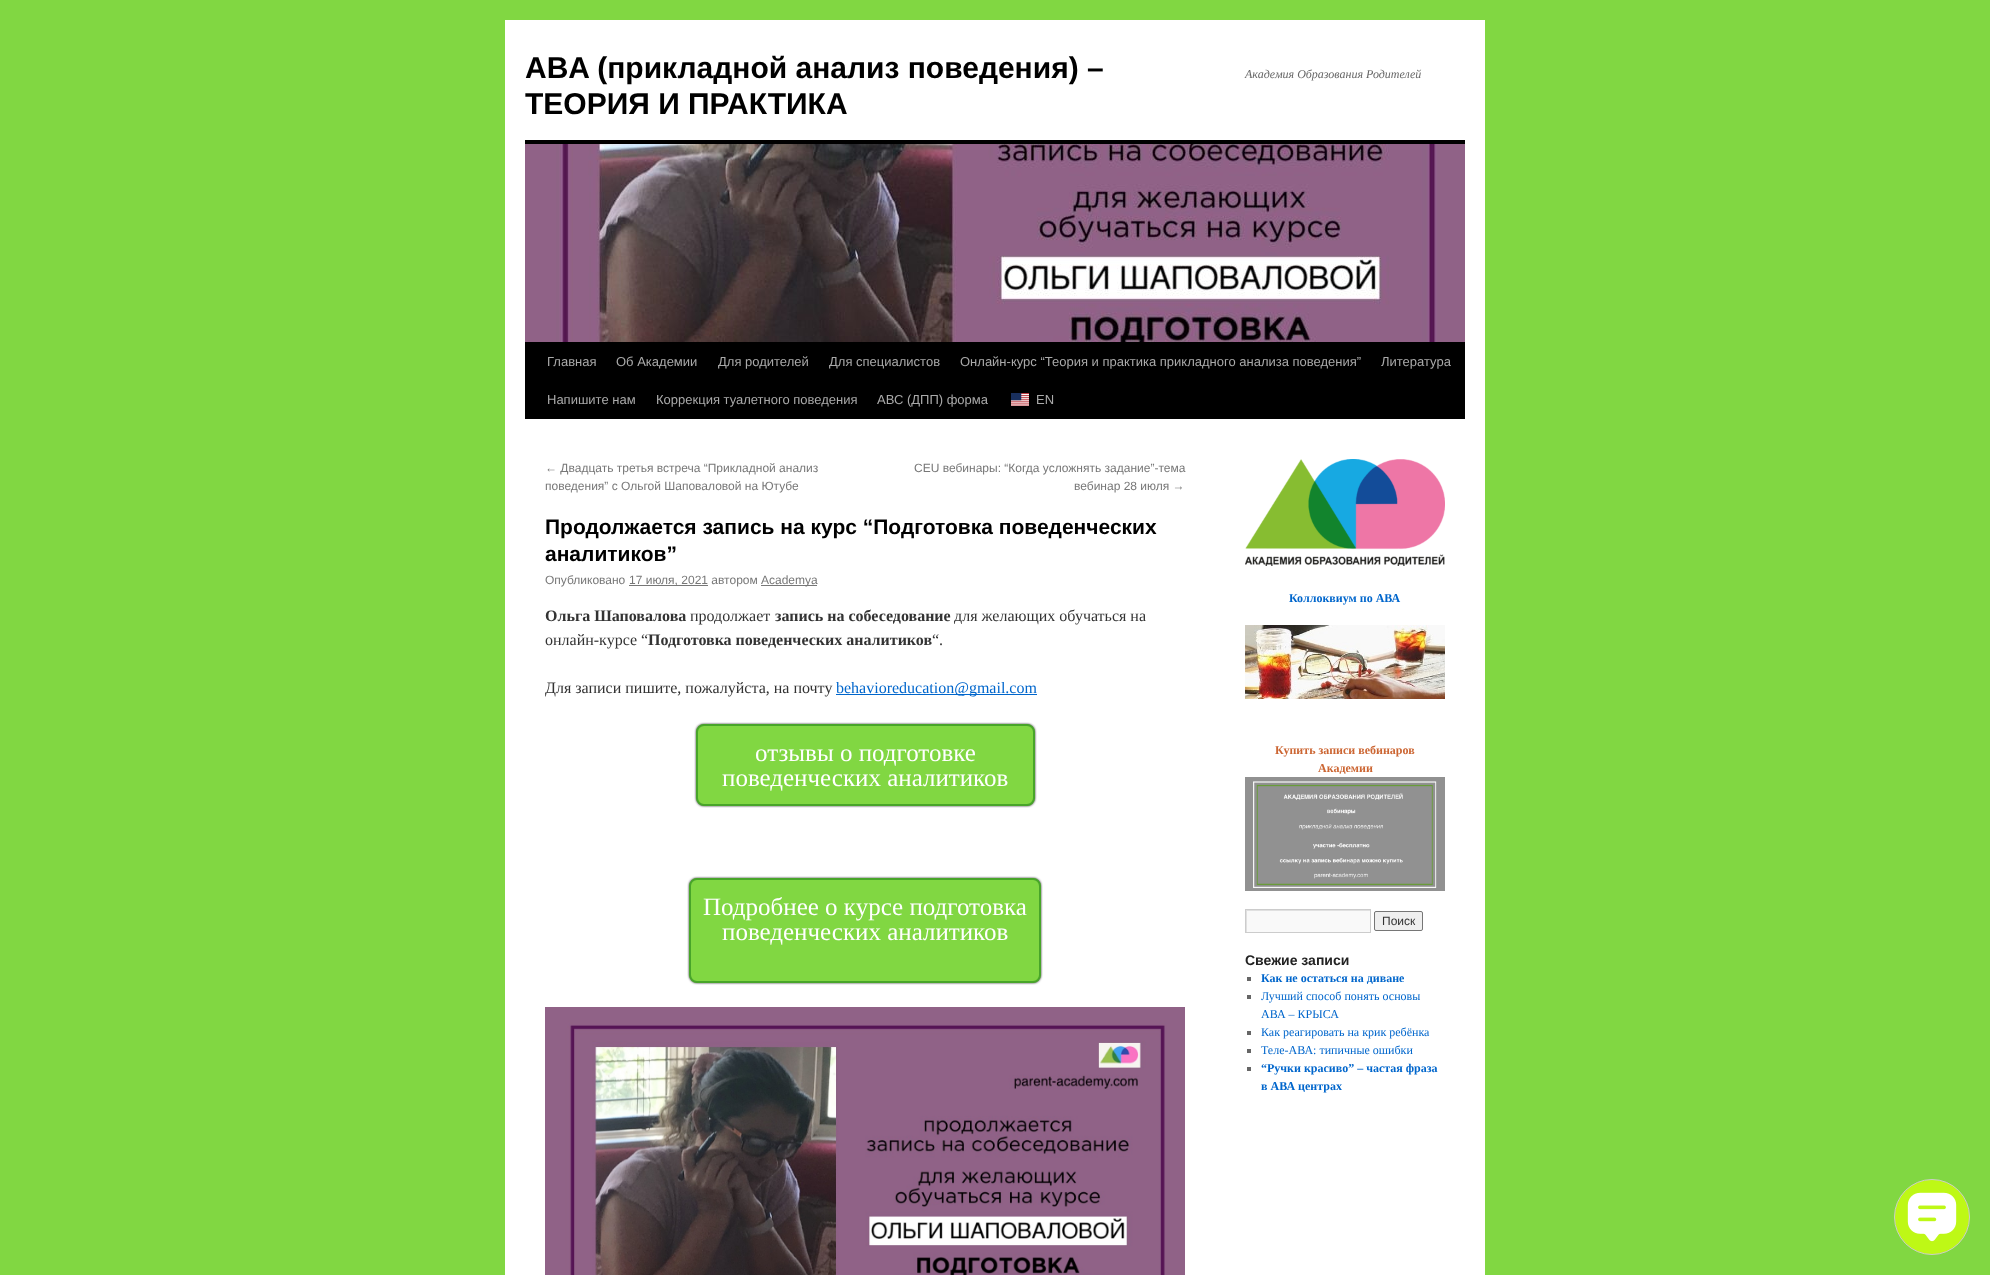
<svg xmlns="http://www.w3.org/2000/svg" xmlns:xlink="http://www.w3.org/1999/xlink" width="1990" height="1275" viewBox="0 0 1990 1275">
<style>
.cls-1{font:bold 30px Liberation Sans;fill:#000000}
.cls-2{font:italic 12px Liberation Serif;fill:#666666}
.cls-3{font:13px Liberation Sans;fill:#aaaaaa}
.cls-4{font:12px Liberation Sans;fill:#777777}
.cls-5{font:bold 21px Liberation Sans;fill:#000000}
.cls-6{font:bold 16px Liberation Serif;fill:#333333}
.cls-7{font:16px Liberation Serif;fill:#333333}
.cls-8{font:16px Liberation Serif;fill:#0066cc}
.cls-9{font:25px Liberation Serif;fill:#ffffff}
.cls-10{font:bold 12px Liberation Serif;fill:#0066cc}
.cls-11{font:bold 12px Liberation Serif;fill:#cc6633}
.cls-12{font:12px Liberation Sans;fill:#333333}
.cls-13{font:bold 14px Liberation Sans;fill:#222222}
.cls-14{font:12px Liberation Serif;fill:#0066cc}
</style>
<defs>
<clipPath id="clip1"><rect x="1246" y="910" width="124" height="22"/></clipPath>
</defs>
<rect width="100%" height="100%" fill="#81d742"/>
<rect fill="#ffffff" x="505" y="20" width="980" height="1255"/>
<rect fill="#000000" x="525" y="140" width="940" height="4"/>
<rect fill="#000000" x="525" y="342" width="940" height="77"/>
<image xlink:href="image0.png" x="525" y="144" width="940" height="198"/>
<image xlink:href="image1.png" x="1011" y="393" width="18" height="13"/>
<rect fill="#777777" x="629" y="585" width="79" height="1"/>
<rect fill="#777777" x="761" y="585" width="56" height="1"/>
<rect fill="#0066cc" x="836" y="694" width="201" height="1"/>
<rect fill="#333333" filter="blur(1px)" x="696" y="724" width="339" height="82" rx="8"/>
<rect fill="#81d742" stroke="#48a529" stroke-width="2" x="697" y="725" width="337" height="80" rx="7"/>
<rect fill="#333333" filter="blur(1px)" x="689" y="878" width="352" height="105" rx="8"/>
<rect fill="#81d742" stroke="#48a529" stroke-width="2" x="690" y="879" width="350" height="103" rx="7"/>
<image xlink:href="image2.png" x="545" y="1007" width="640" height="268"/>
<image xlink:href="image3.png" x="1245" y="459" width="200" height="107"/>
<image xlink:href="image4.png" x="1245" y="625" width="200" height="74"/>
<image xlink:href="image5.png" x="1245" y="777" width="200" height="114"/>
<rect fill="#f9f9f9" x="1247" y="911" width="123" height="21"/>
<g clip-path="url(#clip1)">
<path fill="#e0e0e0" fill-rule="evenodd" d="M1147 811H1469V1031H1147ZM1247 911H1371V933H1247Z"/>
</g>
<rect fill="none" stroke="#cccccc" x="1245.5" y="909.5" width="125" height="23"/>
<rect fill="#efefef" stroke="#767676" x="1374.5" y="911.5" width="48" height="19" rx="1.5"/>
<rect fill="#666666" x="1247" y="977" width="4" height="4"/>
<rect fill="#666666" x="1247" y="995" width="4" height="4"/>
<rect fill="#666666" x="1247" y="1031" width="4" height="4"/>
<rect fill="#666666" x="1247" y="1049" width="4" height="4"/>
<rect fill="#666666" x="1247" y="1067" width="4" height="4"/>
<circle fill="#bef816" stroke="#cccccc" cx="1932" cy="1217" r="37.5"/>
<image xlink:href="image6.png" x="1907" y="1192" width="50" height="50"/>
<text class="cls-1"><tspan x="525" y="78">ABA (прикладной анализ поведения) –</tspan><tspan x="525" y="114">ТЕОРИЯ И ПРАКТИКА</tspan></text>
<text class="cls-2" x="1245" y="78">Академия Образования Родителей</text>
<text class="cls-3" x="547" y="366">Главная</text>
<text class="cls-3" x="616" y="366">Об Академии</text>
<text class="cls-3" x="718" y="366">Для родителей</text>
<text class="cls-3" x="829" y="366">Для специалистов</text>
<text class="cls-3" x="960" y="366">Онлайн-курс “Теория и практика прикладного анализа поведения”</text>
<text class="cls-3" x="1381" y="366">Литература</text>
<text class="cls-3" x="547" y="404">Напишите нам</text>
<text class="cls-3" x="656" y="404">Коррекция туалетного поведения</text>
<text class="cls-3" x="877" y="404">АВС (ДПП) форма</text>
<text class="cls-3" x="1036" y="404">EN</text>
<text class="cls-4"><tspan x="545" y="472">← Двадцать третья встреча “Прикладной анализ</tspan><tspan x="545" y="490">поведения” с Ольгой Шаповаловой на Ютубе</tspan></text>
<text class="cls-4" x="914" y="472">CEU вебинары: “Когда усложнять задание”-тема</text>
<text class="cls-4" x="1074" y="490">вебинар 28 июля →</text>
<text class="cls-5"><tspan x="545" y="534">Продолжается запись на курс “Подготовка поведенческих</tspan><tspan x="545" y="561">аналитиков”</tspan></text>
<text class="cls-4" x="545" y="584">Опубликовано</text>
<text class="cls-4" x="629" y="584">17 июля, 2021 автором</text>
<text class="cls-4" x="761" y="584">Academya</text>
<text class="cls-6" x="545" y="621">Ольга Шаповалова</text>
<text class="cls-7" x="690" y="621">продолжает</text>
<text class="cls-6" x="775" y="621">запись на собеседование</text>
<text class="cls-7" x="954" y="621">для желающих обучаться на</text>
<text class="cls-7" x="545" y="645">онлайн-курсе “</text>
<text class="cls-6" x="648" y="645">Подготовка поведенческих аналитиков</text>
<text class="cls-7" x="932" y="645">“.</text>
<text class="cls-7" x="545" y="693">Для записи пишите, пожалуйста, на почту</text>
<text class="cls-8" x="836" y="693">behavioreducation@gmail.com</text>
<text class="cls-9" x="755" y="761">отзывы о подготовке</text>
<text class="cls-9" x="722" y="786">поведенческих аналитиков</text>
<text class="cls-9" x="703" y="915">Подробнее о курсе подготовка</text>
<text class="cls-9" x="722" y="940">поведенческих аналитиков</text>
<text class="cls-10" x="1289" y="602">Коллоквиум по АВА</text>
<text class="cls-11" x="1275" y="754">Купить записи вебинаров</text>
<text class="cls-11" x="1318" y="772">Академии</text>
<text class="cls-12" x="1382" y="925">Поиск</text>
<text class="cls-13" x="1245" y="965">Свежие записи</text>
<text class="cls-10" x="1261" y="982">Как не остаться на диване</text>
<text class="cls-14"><tspan x="1261" y="1000">Лучший способ понять основы</tspan><tspan x="1261" y="1018">АВА – КРЫСА</tspan><tspan x="1261" y="1036">Как реагировать на крик ребёнка</tspan><tspan x="1261" y="1054">Теле-АВА: типичные ошибки</tspan></text>
<text class="cls-10"><tspan x="1261" y="1072">“Ручки красиво” – частая фраза</tspan><tspan x="1261" y="1090">в АВА центрах</tspan></text>
</svg>
